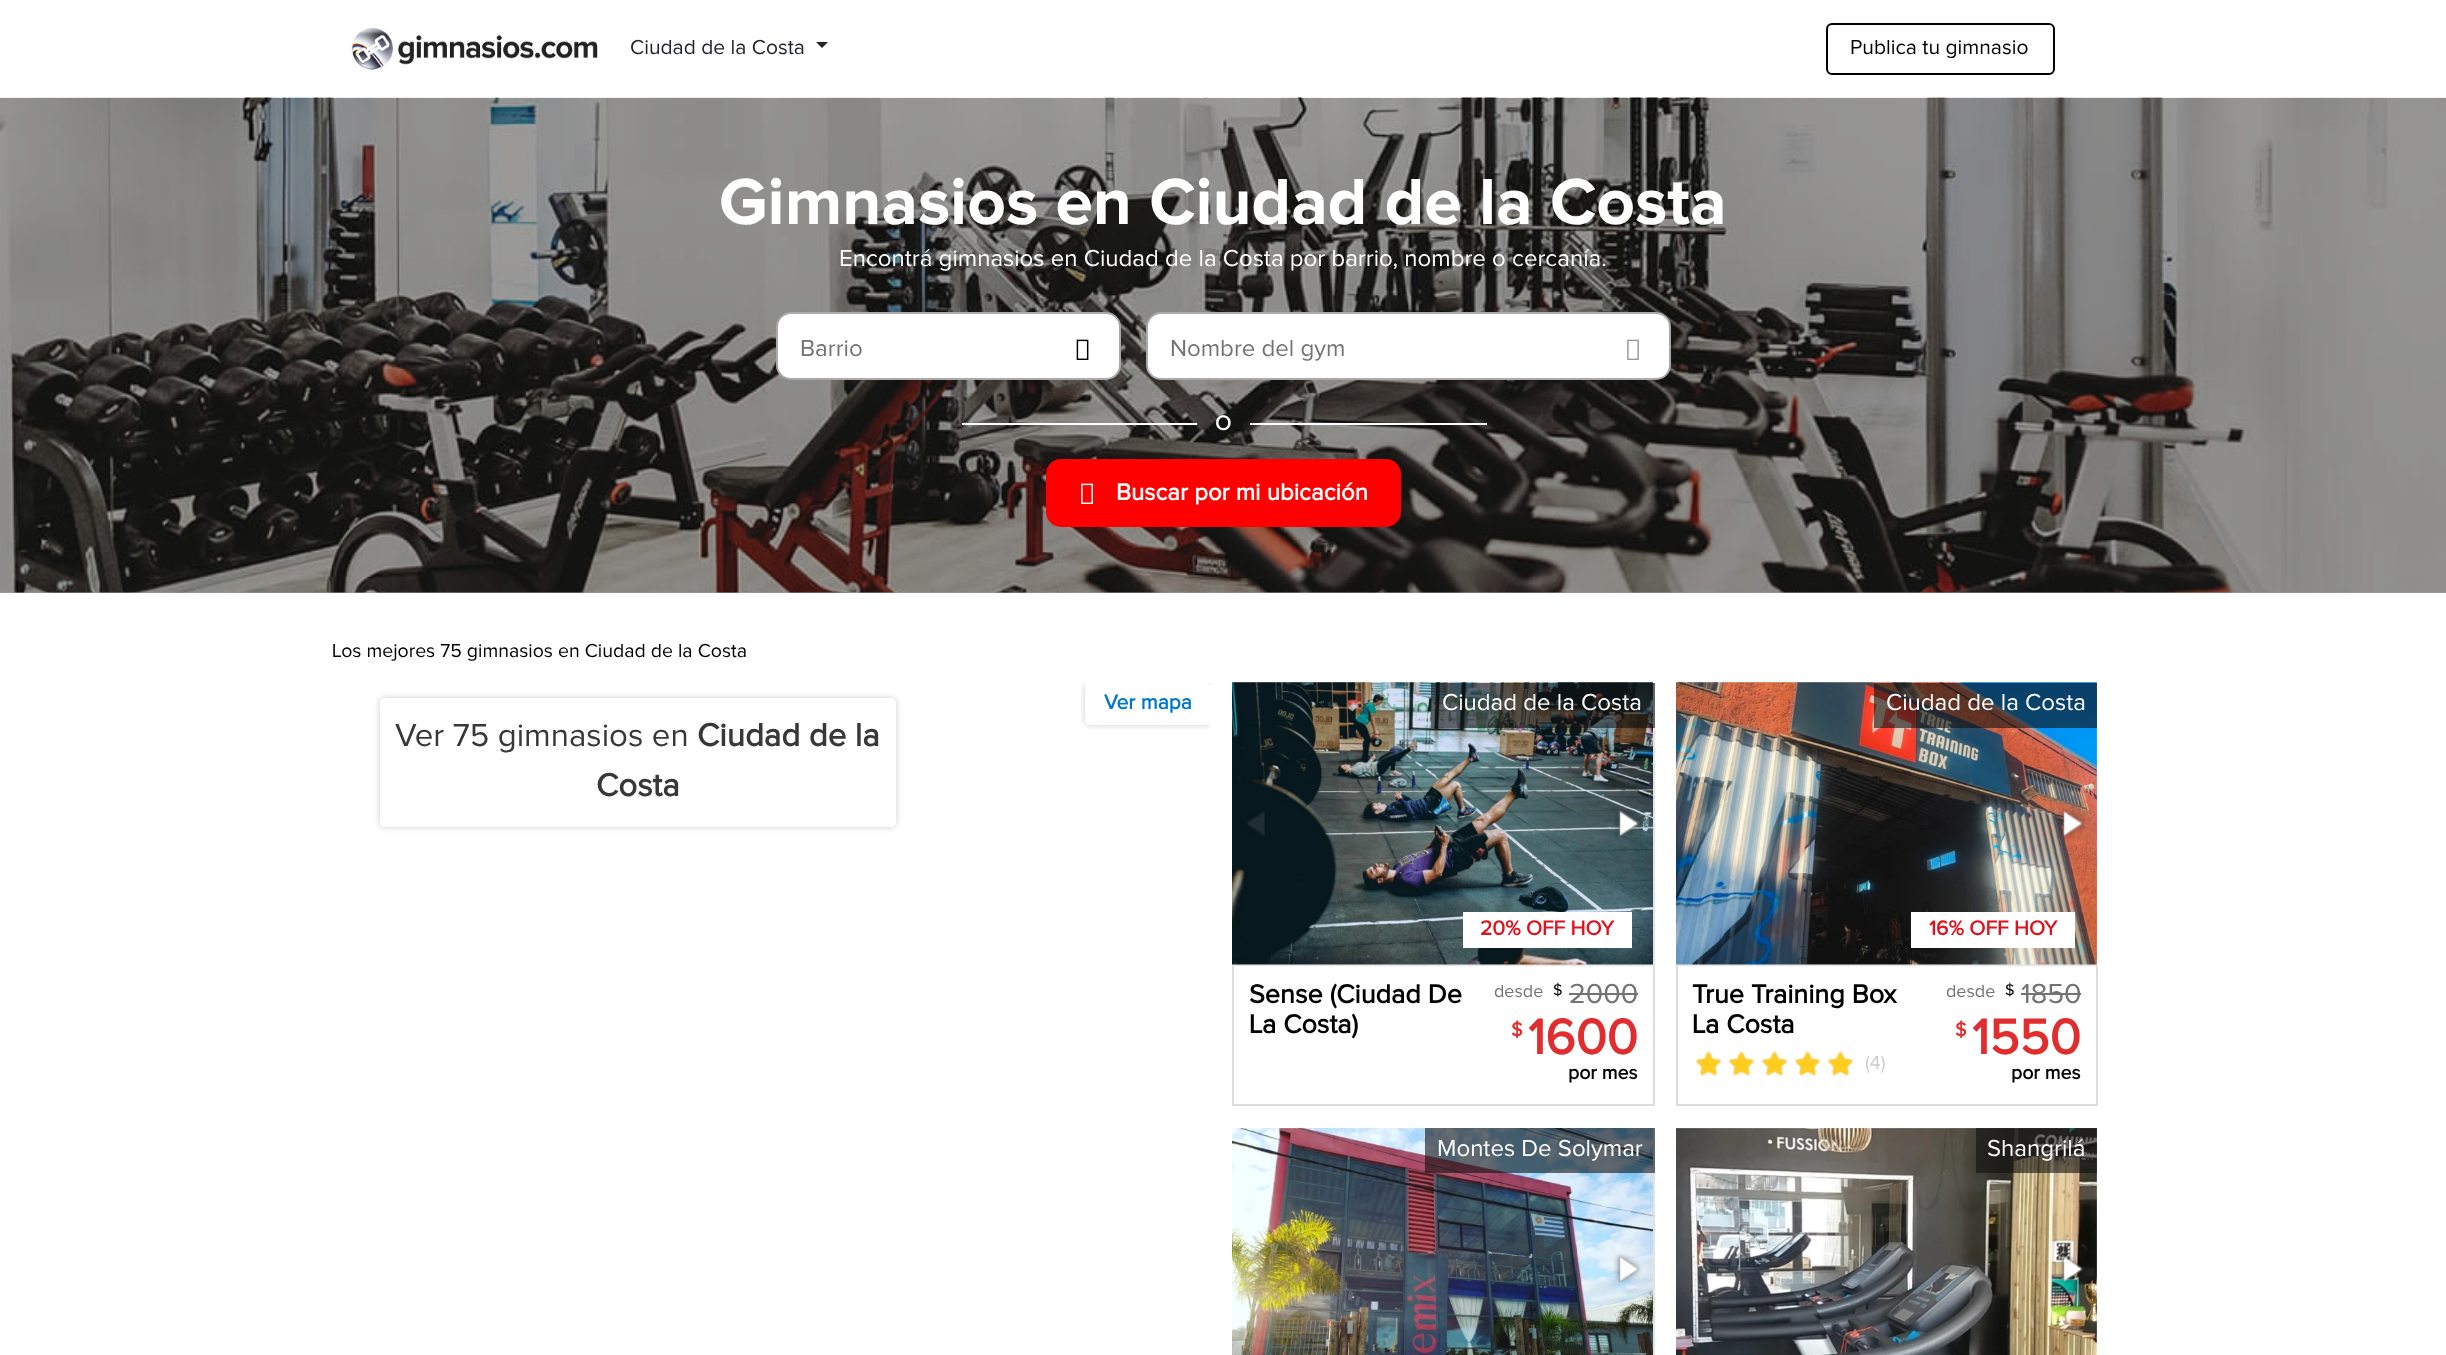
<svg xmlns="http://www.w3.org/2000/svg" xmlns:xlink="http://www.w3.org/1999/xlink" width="2446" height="1355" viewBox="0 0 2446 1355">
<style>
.cls-1{font:21px Proxima Nova;fill:#212529}
.cls-2{font:21px Proxima Nova;fill:#000000}
.cls-3{font:bold 67.5px 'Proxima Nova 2';fill:#ffffff}
.cls-4{font:24px Proxima Nova;fill:#ffffff}
.cls-5{font:24px Proxima Nova;fill:#737373}
.cls-6{font:bold 21px Proxima Nova;fill:#ffffff}
.cls-7{font:bold 24px Proxima Nova;fill:#ffffff}
.cls-8{font:19.5px Proxima Nova;fill:#000000}
.cls-9{font:bold 21px Proxima Nova;fill:#0077cc}
.cls-10{font:33px Proxima Nova;fill:#383838}
.cls-11{font:bold 33px Proxima Nova;fill:#383838}
.cls-12{font:bold 21px Proxima Nova;fill:#df111c}
.cls-13{font:bold 27px Proxima Nova;fill:#000000}
.cls-14{font:18px Proxima Nova;fill:#737373}
.cls-15{font:16px Proxima Nova;fill:#000000}
.cls-16{font:28.5px Proxima Nova;fill:#737373}
.cls-17{font:bold 19.5px Proxima Nova;fill:#e12d2d}
.cls-18{font:bold 51px Proxima Nova;fill:#e12d2d}
.cls-19{font:bold 19.5px Proxima Nova;fill:#000000}
.cls-20{font:19.5px Proxima Nova;fill:#cccccc}
</style>
<defs>
<clipPath id="clip1"><rect x="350" y="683" width="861" height="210"/></clipPath>
<clipPath id="clip2"><path d="M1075 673H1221V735H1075ZM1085 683H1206C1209 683 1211 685 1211 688V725H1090C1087 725 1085 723 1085 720Z" clip-rule="evenodd"/></clipPath>
<clipPath id="clip3"><path d="M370 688H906V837H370ZM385 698H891C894 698 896 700 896 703V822C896 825 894 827 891 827H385C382 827 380 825 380 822V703C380 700 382 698 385 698Z" clip-rule="evenodd"/></clipPath>
</defs>
<rect width="100%" height="100%" fill="#ffffff"/>
<rect fill="#a0a0a0" x="0" y="592" width="2446" height="1"/>
<image xlink:href="image0.png" x="351" y="28" width="247" height="42"/>
<path fill="#212529" d="M816 42H828L822 48Z"/>
<rect fill="none" stroke="#000000" stroke-width="2" x="1827" y="24" width="227" height="50" rx="5"/>
<image xlink:href="image1.png" x="0" y="97" width="2446" height="496"/>
<rect fill="#ffffff" stroke="#aaaaaa" stroke-width="2" x="777" y="313" width="343" height="66" rx="14"/>
<image xlink:href="image2.png" x="1076" y="339" width="13" height="21"/>
<rect fill="#ffffff" stroke="#aaaaaa" stroke-width="2" x="1147" y="313" width="523" height="66" rx="14"/>
<image xlink:href="image3.png" x="1627" y="339" width="12" height="21"/>
<rect fill="#ffffff" x="962" y="423" width="235" height="2"/>
<rect fill="#ffffff" x="1250" y="423" width="237" height="2"/>
<rect fill="#ff0000" x="1046" y="459" width="355" height="68" rx="15"/>
<image xlink:href="image4.png" x="1081" y="483" width="12" height="21"/>
<g clip-path="url(#clip1)">
<g clip-path="url(#clip2)">
<rect fill="#000000" fill-opacity="0.2" filter="blur(3px)" x="1085" y="683" width="126" height="42" rx="5"/>
</g>
</g>
<path fill="#ffffff" fill-opacity="0.75" d="M1085 683H1206C1209 683 1211 685 1211 688V725H1090C1087 725 1085 723 1085 720Z"/>
<g clip-path="url(#clip3)">
<rect fill="#000000" fill-opacity="0.2" filter="blur(3px)" x="380" y="698" width="516" height="129" rx="5"/>
</g>
<rect fill="#ffffff" fill-opacity="0.75" x="380" y="698" width="516" height="129" rx="5"/>
<rect fill="#e3e3e3" x="1232" y="683" width="423" height="283"/>
<image xlink:href="image5.png" x="1232" y="682" width="421" height="283"/>
<image xlink:href="image6.png" x="1246" y="811" width="19" height="25"/>
<image xlink:href="image7.png" x="1613" y="809" width="28" height="29"/>
<rect fill="#111111" fill-opacity="0.6" x="1431" y="683" width="224" height="45"/>
<rect fill="#ffffff" x="1463" y="912" width="169" height="36"/>
<rect fill="#dddddd" x="1653" y="966" width="2" height="140"/>
<rect fill="#dddddd" x="1232" y="1104" width="423" height="2"/>
<rect fill="#dddddd" x="1232" y="966" width="2" height="140"/>
<rect fill="#737373" x="1569" y="993" width="69" height="2"/>
<rect fill="#e3e3e3" x="1676" y="683" width="421" height="283"/>
<image xlink:href="image8.png" x="1676" y="682" width="421" height="283"/>
<image xlink:href="image9.png" x="1691" y="811" width="19" height="24"/>
<image xlink:href="image10.png" x="2058" y="807" width="28" height="33"/>
<rect fill="#111111" fill-opacity="0.6" x="1874" y="683" width="223" height="45"/>
<rect fill="#ffffff" x="1911" y="912" width="164" height="36"/>
<rect fill="#dddddd" x="2096" y="966" width="2" height="140"/>
<rect fill="#dddddd" x="1676" y="1104" width="421" height="2"/>
<rect fill="#dddddd" x="1676" y="966" width="2" height="140"/>
<image xlink:href="image11.png" x="1696" y="1051" width="157" height="25"/>
<image xlink:href="image12.png" x="1696" y="1051" width="157" height="25"/>
<rect fill="#737373" x="2021" y="993" width="60" height="2"/>
<rect fill="#e3e3e3" x="1232" y="1128" width="423" height="227"/>
<image xlink:href="image13.png" x="1232" y="1128" width="421" height="227"/>
<image xlink:href="image14.png" x="1248" y="1258" width="18" height="23"/>
<image xlink:href="image15.png" x="1613" y="1253" width="29" height="32"/>
<rect fill="#111111" fill-opacity="0.6" x="1425" y="1128" width="230" height="45"/>
<image xlink:href="image16.png" x="1676" y="1128" width="421" height="227"/>
<image xlink:href="image17.png" x="1691" y="1258" width="19" height="24"/>
<image xlink:href="image18.png" x="2057" y="1254" width="27" height="31"/>
<rect fill="#111111" fill-opacity="0.6" x="1976" y="1128" width="121" height="45"/>
<text class="cls-1" x="630" y="54">Ciudad de la Costa</text>
<text class="cls-2" x="1850" y="54">Publica tu gimnasio</text>
<text class="cls-3" x="719" y="224">Gimnasios en Ciudad de la Costa</text>
<text class="cls-4" x="839" y="266">Encontrá gimnasios en Ciudad de la Costa por barrio, nombre o cercanía.</text>
<text class="cls-5" x="800" y="356">Barrio</text>
<text class="cls-5" x="1170" y="356">Nombre del gym</text>
<text class="cls-6" x="1215" y="430">O</text>
<text class="cls-7" x="1116" y="500">Buscar por mi ubicación</text>
<text class="cls-8" x="332" y="657">Los mejores 75 gimnasios en Ciudad de la Costa</text>
<text class="cls-9" x="1104" y="709">Ver mapa</text>
<text class="cls-10" x="395" y="746">Ver 75 gimnasios en</text>
<text class="cls-11" x="697" y="746">Ciudad de la</text>
<text class="cls-11" x="596" y="796">Costa</text>
<text class="cls-4" x="1442" y="710">Ciudad de la Costa</text>
<text class="cls-12" x="1480" y="935">20% OFF HOY</text>
<text class="cls-13"><tspan x="1249" y="1003">Sense (Ciudad De</tspan><tspan x="1249" y="1033">La Costa)</tspan></text>
<text class="cls-14" x="1494" y="997">desde</text>
<text class="cls-15" x="1553" y="995">$</text>
<text class="cls-16" x="1569" y="1003">2000</text>
<text class="cls-17" x="1511" y="1036">$</text>
<text class="cls-18" x="1528" y="1054">1600</text>
<text class="cls-19" x="1568" y="1079">por mes</text>
<text class="cls-4" x="1886" y="710">Ciudad de la Costa</text>
<text class="cls-12" x="1929" y="935">16% OFF HOY</text>
<text class="cls-13"><tspan x="1692" y="1003">True Training Box</tspan><tspan x="1692" y="1033">La Costa</tspan></text>
<text class="cls-20" x="1865" y="1069">(4)</text>
<text class="cls-14" x="1946" y="997">desde</text>
<text class="cls-15" x="2005" y="995">$</text>
<text class="cls-16" x="2021" y="1003">1850</text>
<text class="cls-17" x="1955" y="1036">$</text>
<text class="cls-18" x="1972" y="1054">1550</text>
<text class="cls-19" x="2011" y="1079">por mes</text>
<text class="cls-4" x="1437" y="1156">Montes De Solymar</text>
<text class="cls-4" x="1987" y="1156">Shangrilá</text>
</svg>
